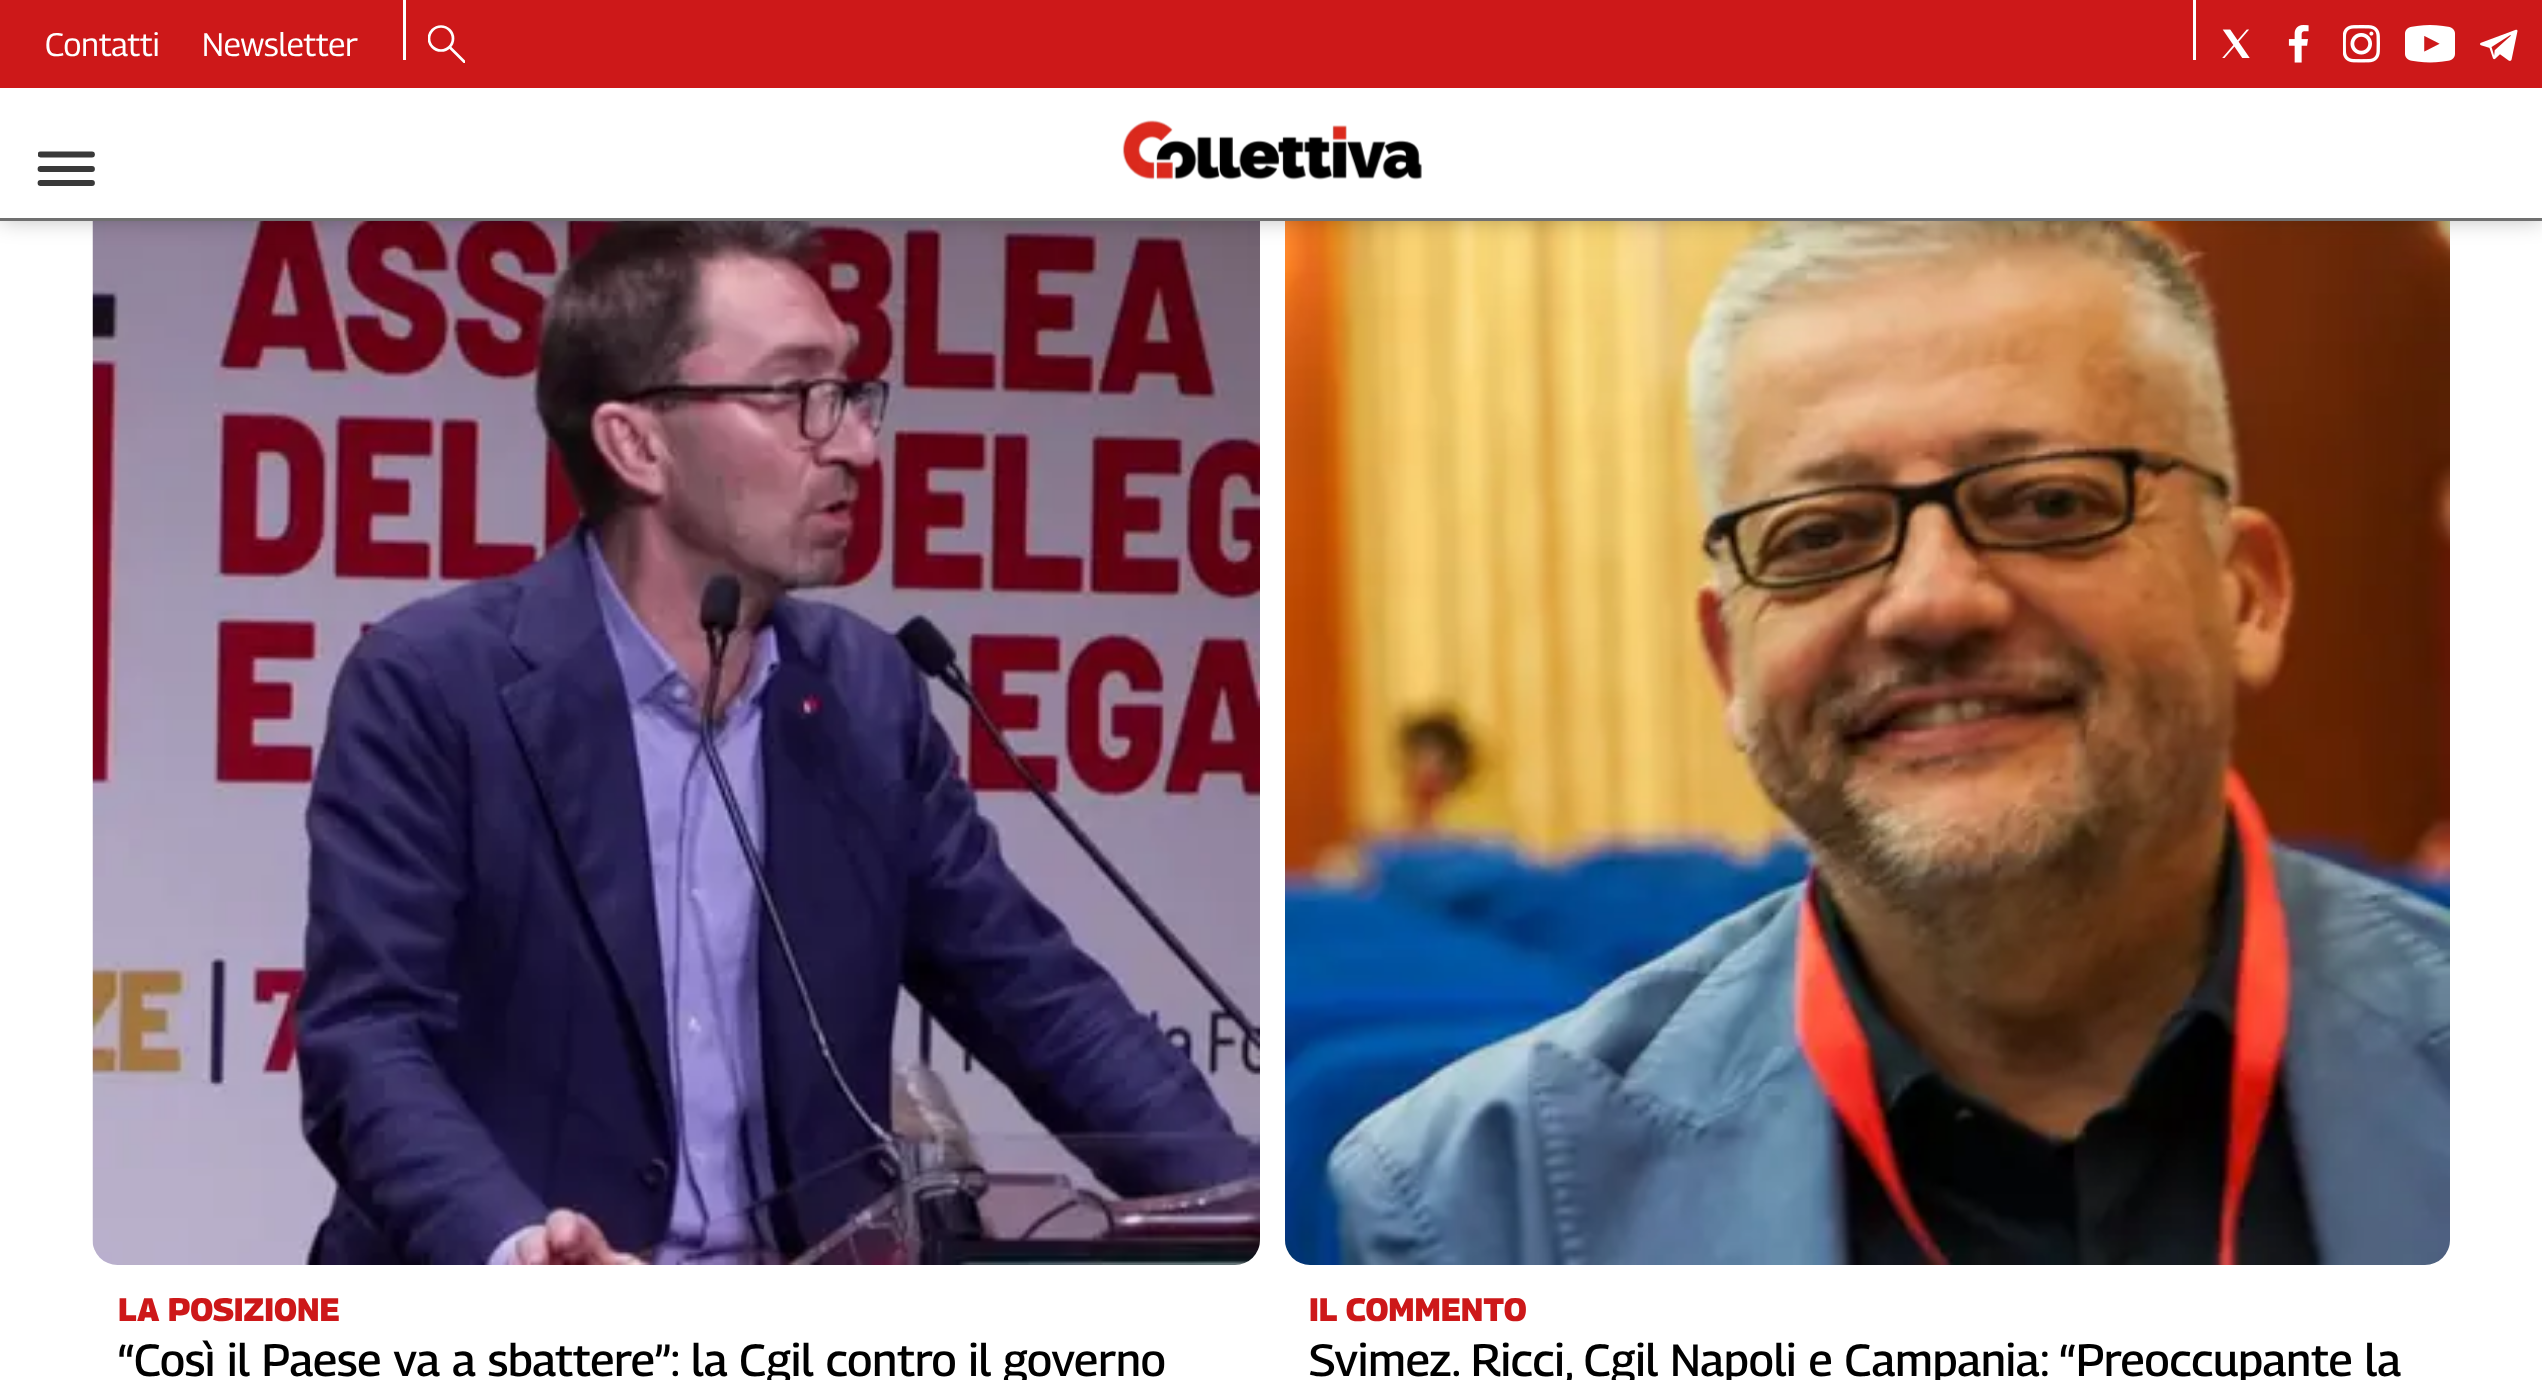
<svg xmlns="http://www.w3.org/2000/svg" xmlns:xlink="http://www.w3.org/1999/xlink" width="2542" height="1380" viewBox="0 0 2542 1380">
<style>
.cls-1{font:32.5px Georama;fill:#ffffff}
.cls-2{font:800 32.5px Georama;fill:#cd1819}
.cls-3{font:500 45px Georama;fill:#000000}
</style>
<defs>
<clipPath id="clip1"><rect x="428" y="25" width="37" height="38"/></clipPath>
<clipPath id="clip2"><rect x="38" y="140" width="57" height="58"/></clipPath>
</defs>
<rect width="100%" height="100%" fill="#ffffff"/>
<image xlink:href="image6.png" x="92" y="221" width="1168" height="1044"/>
<image xlink:href="image7.png" x="1285" y="221" width="1165" height="1044"/>
<rect fill="#000000" fill-opacity="0.3" filter="blur(12.5px)" x="0" y="0" width="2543" height="218"/>
<rect fill="#ffffff" x="0" y="88" width="2542" height="130"/>
<rect fill="#cd1819" x="0" y="0" width="2542" height="88"/>
<rect fill="#ffffff" x="403" y="0" width="3" height="60"/>
<g clip-path="url(#clip1)">
<circle fill="none" stroke="#ffffff" stroke-width="2.7" cx="441" cy="38.5" r="12"/>
<path fill="none" stroke="#ffffff" stroke-width="2.7" stroke-linecap="round" d="M450.5 48L465 62.5"/>
</g>
<rect fill="#ffffff" x="2193" y="0" width="3" height="60"/>
<image xlink:href="image0.png" x="2222" y="29" width="28" height="29"/>
<image xlink:href="image1.png" x="2288" y="25" width="21" height="38"/>
<image xlink:href="image2.png" x="2343" y="25" width="37" height="38"/>
<image xlink:href="image3.png" x="2405" y="25" width="50" height="38"/>
<image xlink:href="image4.png" x="2480" y="29" width="38" height="32"/>
<image xlink:href="image5.png" x="1122" y="120" width="300" height="60"/>
<g clip-path="url(#clip2)">
<path fill="none" stroke="#393939" stroke-width="5.8" stroke-linecap="round" d="M40.5 154.5H92"/>
</g>
<path fill="none" stroke="#393939" stroke-width="5.8" stroke-linecap="round" d="M40.5 169H92M40.5 183H92"/>
<rect fill="#707070" x="0" y="218" width="2542" height="3"/>
<text class="cls-1" x="45" y="56">Contatti</text>
<text class="cls-1" x="202" y="56">Newsletter</text>
<text class="cls-2" x="118" y="1321">LA POSIZIONE</text>
<text class="cls-3" x="118" y="1376">“Così il Paese va a sbattere”: la Cgil contro il governo</text>
<text class="cls-2" x="1309" y="1321">IL COMMENTO</text>
<text class="cls-3" x="1309" y="1376">Svimez. Ricci, Cgil Napoli e Campania: “Preoccupante la</text>
</svg>
